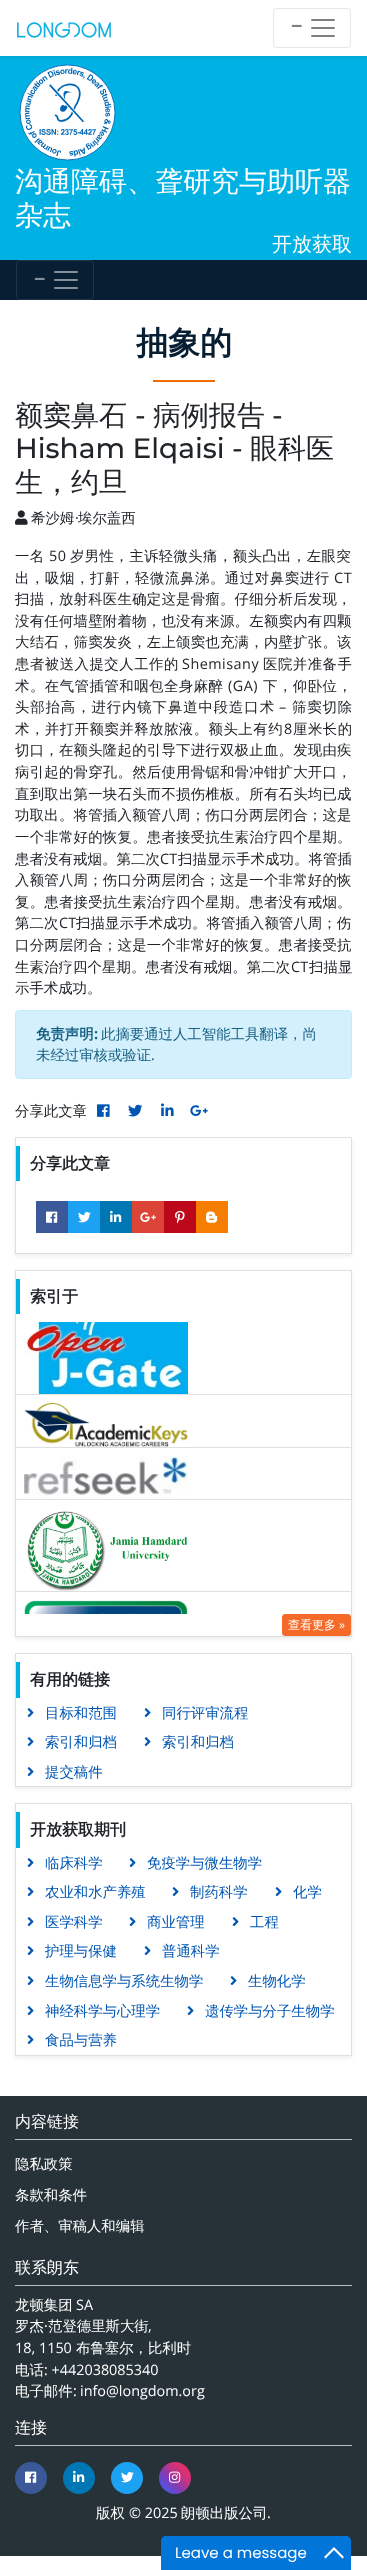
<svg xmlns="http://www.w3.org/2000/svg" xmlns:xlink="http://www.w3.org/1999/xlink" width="367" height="2570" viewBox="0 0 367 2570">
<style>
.cls-1{font:bold 20px Open Sans;fill:#808080}
.cls-2{font:500 28px WenQuanYi Zen Hei;fill:#ffffff}
.cls-3{font:500 20px WenQuanYi Zen Hei;fill:#ffffff}
.cls-4{font:bold 20px Open Sans;fill:#838f99}
.cls-5{font:bold 32px WenQuanYi Zen Hei;fill:#071e33}
.cls-6{font:500 28px WenQuanYi Zen Hei;fill:#212529}
.cls-7{font:100 28px Montserrat;fill:#212529}
.cls-8{font:500 14.4px WenQuanYi Zen Hei;fill:#212529}
.cls-9{font:14.4px Open Sans;fill:#212529}
.cls-10{font:500 14.4px WenQuanYi Zen Hei;letter-spacing:0.4px;fill:#212529}
.cls-11{font:14.4px Open Sans;letter-spacing:0.4px;fill:#212529}
.cls-12{font:500 14.4px WenQuanYi Zen Hei;letter-spacing:0.6px;fill:#212529}
.cls-13{font:14.4px Open Sans;letter-spacing:0.6px;fill:#212529}
.cls-14{font:500 14.4px WenQuanYi Zen Hei;letter-spacing:0.25px;fill:#212529}
.cls-15{font:500 14.4px WenQuanYi Zen Hei;letter-spacing:0.5px;fill:#212529}
.cls-16{font:14.4px Open Sans;letter-spacing:0.5px;fill:#212529}
.cls-17{font:500 14.4px WenQuanYi Zen Hei;letter-spacing:0.9px;fill:#212529}
.cls-18{font:14.4px Open Sans;letter-spacing:0.9px;fill:#212529}
.cls-19{font:500 14.4px WenQuanYi Zen Hei;letter-spacing:0.1px;fill:#212529}
.cls-20{font:14.4px Open Sans;letter-spacing:0.1px;fill:#212529}
.cls-21{font:bold 14.4px WenQuanYi Zen Hei;fill:#155f80}
.cls-22{font:bold 14.4px Open Sans;fill:#155f80}
.cls-23{font:500 14.4px WenQuanYi Zen Hei;fill:#155f80}
.cls-24{font:14.4px Open Sans;fill:#155f80}
.cls-25{font:bold 16px WenQuanYi Zen Hei;fill:#212529}
.cls-26{font:500 12px WenQuanYi Zen Hei;fill:#ffffff}
.cls-27{font:12px Open Sans;fill:#ffffff}
.cls-28{font:500 14.4px WenQuanYi Zen Hei;fill:#0056b3}
.cls-29{font:500 16px WenQuanYi Zen Hei;fill:#ffffff}
.cls-30{font:500 14.4px WenQuanYi Zen Hei;fill:#ffffff}
.cls-31{font:14.4px Open Sans;fill:#ffffff}
.cls-32{font:15px Poppins;fill:#ffffff}
</style>
<defs>
<clipPath id="clip1"><rect x="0" y="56" width="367" height="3"/></clipPath>
<clipPath id="clip2"><path d="M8 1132H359V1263H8ZM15 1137H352V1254H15Z" clip-rule="evenodd"/></clipPath>
<clipPath id="clip3"><path d="M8 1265H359V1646H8ZM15 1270H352V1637H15Z" clip-rule="evenodd"/></clipPath>
<clipPath id="clip4"><path d="M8 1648H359V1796H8ZM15 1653H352V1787H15Z" clip-rule="evenodd"/></clipPath>
<clipPath id="clip5"><path d="M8 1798H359V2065H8ZM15 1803H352V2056H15Z" clip-rule="evenodd"/></clipPath>
<linearGradient id="g1" gradientUnits="userSpaceOnUse" x1="159" y1="2494" x2="191" y2="2462"><stop offset="0" stop-color="#405de6"/><stop offset="0.2" stop-color="#5851db"/><stop offset="0.4" stop-color="#833ab4"/><stop offset="0.6" stop-color="#c13584"/><stop offset="0.8" stop-color="#e1306c"/><stop offset="1" stop-color="#fd1d1d"/></linearGradient>
</defs>
<rect width="100%" height="100%" fill="#ffffff"/>
<rect fill="#00b1e4" x="0" y="56" width="367" height="204"/>
<g clip-path="url(#clip1)">
<rect fill="#000000" fill-opacity="0.07" filter="blur(2px)" x="0" y="2" width="367" height="56"/>
</g>
<image xlink:href="image0.png" x="17" y="22" width="94" height="16"/>
<rect fill="none" stroke="#e6e6e6" x="273.5" y="8.5" width="77" height="39" rx="3.5"/>
<image xlink:href="image1.png" x="311" y="19" width="24" height="18"/>
<image xlink:href="image2.png" x="19" y="64" width="97" height="97"/>
<rect fill="#071e33" x="0" y="260" width="367" height="40"/>
<rect fill="none" stroke="#203547" x="16.5" y="260.5" width="77" height="39" rx="3.5"/>
<image xlink:href="image3.png" x="54" y="271" width="24" height="18"/>
<rect fill="#ef6c00" x="153" y="380" width="62" height="2"/>
<image xlink:href="image4.png" x="15" y="510" width="13" height="15"/>
<rect fill="#d4f0fd" stroke="#c3ebfc" x="15.5" y="1010.5" width="336" height="68" rx="3.5"/>
<image xlink:href="image5.png" x="97" y="1104" width="13" height="13"/>
<image xlink:href="image6.png" x="128" y="1104" width="15" height="13"/>
<image xlink:href="image7.png" x="161" y="1103" width="13" height="13"/>
<image xlink:href="image8.png" x="190" y="1105" width="18" height="11"/>
<g clip-path="url(#clip2)">
<rect fill="#000000" fill-opacity="0.07" filter="blur(2px)" x="15" y="1139" width="337" height="117"/>
</g>
<rect fill="none" stroke="#dfdfdf" x="15.5" y="1137.5" width="336" height="116"/>
<rect fill="#00b1e4" x="16" y="1146" width="4" height="35"/>
<rect fill="#3b5998" x="36" y="1201" width="32" height="32"/>
<image xlink:href="image9.png" x="46" y="1211" width="12" height="12"/>
<rect fill="#1da1f2" x="68" y="1201" width="32" height="32"/>
<image xlink:href="image10.png" x="78" y="1212" width="13" height="11"/>
<rect fill="#0077b5" x="100" y="1201" width="32" height="32"/>
<image xlink:href="image11.png" x="110" y="1210" width="12" height="12"/>
<rect fill="#db4437" x="132" y="1201" width="32" height="32"/>
<image xlink:href="image12.png" x="140" y="1212" width="16" height="10"/>
<rect fill="#bd081c" x="164" y="1201" width="32" height="32"/>
<image xlink:href="image13.png" x="175" y="1211" width="10" height="13"/>
<rect fill="#f57d00" x="196" y="1201" width="32" height="32"/>
<image xlink:href="image14.png" x="206" y="1211" width="12" height="12"/>
<g clip-path="url(#clip3)">
<rect fill="#000000" fill-opacity="0.07" filter="blur(2px)" x="15" y="1272" width="337" height="367"/>
</g>
<rect fill="none" stroke="#dfdfdf" x="15.5" y="1270.5" width="336" height="366"/>
<rect fill="#00b1e4" x="16" y="1279" width="4" height="35"/>
<image xlink:href="image15.png" x="24" y="1322" width="164" height="72"/>
<rect fill="#dfdfdf" x="16" y="1394" width="335" height="1"/>
<image xlink:href="image16.png" x="24" y="1403" width="164" height="44"/>
<rect fill="#dfdfdf" x="16" y="1447" width="335" height="1"/>
<image xlink:href="image17.png" x="24" y="1456" width="164" height="42"/>
<rect fill="#dfdfdf" x="16" y="1499" width="335" height="1"/>
<image xlink:href="image18.png" x="27" y="1511" width="161" height="80"/>
<rect fill="#dfdfdf" x="16" y="1591" width="335" height="1"/>
<image xlink:href="image19.png" x="24" y="1600" width="164" height="14"/>
<rect fill="#f66a29" stroke="#f66a29" x="282.5" y="1614.5" width="68" height="21" rx="2.5"/>
<g clip-path="url(#clip4)">
<rect fill="#000000" fill-opacity="0.07" filter="blur(2px)" x="15" y="1655" width="337" height="134"/>
</g>
<rect fill="none" stroke="#dfdfdf" x="15.5" y="1653.5" width="336" height="133"/>
<rect fill="#00b1e4" x="16" y="1662" width="4" height="36"/>
<image xlink:href="image20.png" x="27" y="1708" width="7" height="9"/>
<image xlink:href="image20.png" x="144" y="1708" width="7" height="9"/>
<image xlink:href="image20.png" x="27" y="1737" width="7" height="9"/>
<image xlink:href="image20.png" x="144" y="1737" width="7" height="9"/>
<image xlink:href="image20.png" x="27" y="1767" width="7" height="9"/>
<g clip-path="url(#clip5)">
<rect fill="#000000" fill-opacity="0.07" filter="blur(2px)" x="15" y="1805" width="337" height="253"/>
</g>
<rect fill="none" stroke="#dfdfdf" x="15.5" y="1803.5" width="336" height="252"/>
<rect fill="#00b1e4" x="16" y="1812" width="4" height="36"/>
<image xlink:href="image20.png" x="27" y="1858" width="7" height="9"/>
<image xlink:href="image20.png" x="129" y="1858" width="7" height="9"/>
<image xlink:href="image20.png" x="27" y="1887" width="7" height="9"/>
<image xlink:href="image20.png" x="172" y="1887" width="7" height="9"/>
<image xlink:href="image20.png" x="275" y="1887" width="7" height="9"/>
<image xlink:href="image20.png" x="27" y="1917" width="7" height="9"/>
<image xlink:href="image20.png" x="129" y="1917" width="7" height="9"/>
<image xlink:href="image20.png" x="232" y="1917" width="7" height="9"/>
<image xlink:href="image20.png" x="27" y="1946" width="7" height="9"/>
<image xlink:href="image20.png" x="144" y="1946" width="7" height="9"/>
<image xlink:href="image20.png" x="27" y="1976" width="7" height="9"/>
<image xlink:href="image20.png" x="230" y="1976" width="7" height="9"/>
<image xlink:href="image20.png" x="27" y="2006" width="7" height="9"/>
<image xlink:href="image20.png" x="187" y="2006" width="7" height="9"/>
<image xlink:href="image20.png" x="27" y="2035" width="7" height="9"/>
<rect fill="#263238" x="0" y="2096" width="367" height="460"/>
<rect fill="#bdbdbd" x="15" y="2139" width="337" height="1"/>
<rect fill="#bdbdbd" x="15" y="2285" width="337" height="1"/>
<rect fill="#bdbdbd" x="15" y="2445" width="337" height="1"/>
<circle fill="#3b5998" cx="31" cy="2478" r="16"/>
<image xlink:href="image9.png" x="25" y="2471" width="12" height="12"/>
<circle fill="#0077b5" cx="79" cy="2478" r="16"/>
<image xlink:href="image11.png" x="73" y="2470" width="12" height="12"/>
<circle fill="#1da1f2" cx="127" cy="2478" r="16"/>
<image xlink:href="image10.png" x="121" y="2472" width="13" height="11"/>
<circle fill="url(#g1)" cx="175" cy="2478" r="16"/>
<image xlink:href="image21.png" x="169" y="2471" width="12" height="12"/>
<path fill="#0275d8" d="M166 2536H346C349 2536 351 2538 351 2541V2570H161V2541C161 2538 163 2536 166 2536Z"/>
<path fill="#ffffff" d="M334 2547L344 2557L342.5 2558.5L334 2550L325.5 2558.5L324 2557Z"/>
<text class="cls-1" x="291" y="33">−</text>
<text class="cls-2"><tspan x="15" y="191">沟通障碍、聋研究与助听器</tspan><tspan x="15" y="225">杂志</tspan></text>
<text class="cls-3" x="272" y="251">开放获取</text>
<text class="cls-4" x="34" y="286">−</text>
<text class="cls-5" x="136" y="354">抽象的</text>
<text class="cls-6" x="15" y="425">额窦鼻石</text>
<text class="cls-7" x="135" y="425">-</text>
<text class="cls-6" x="153" y="425">病例报告</text>
<text class="cls-7" x="272" y="425">-</text>
<text class="cls-7" x="15" y="458">Hisham Elqaisi -</text>
<text class="cls-6" x="250" y="458">眼科医</text>
<text class="cls-6" x="15" y="492">生，约旦</text>
<text class="cls-8" x="31" y="523">希沙姆</text>
<text class="cls-9" x="75" y="523">·</text>
<text class="cls-8" x="78" y="523">埃尔盖西</text>
<text class="cls-10" x="15" y="561">一名</text>
<text class="cls-11" x="49" y="561">50</text>
<text class="cls-10" x="70" y="561">岁男性，主诉轻微头痛，额头凸出，左眼突</text>
<text class="cls-12" x="15" y="583">出，吸烟，打鼾，轻微流鼻涕。通过对鼻窦进行</text>
<text class="cls-13" x="334" y="583">CT</text>
<text class="cls-14"><tspan x="15" y="604">扫描，放射科医生确定这是骨瘤。仔细分析后发现，</tspan><tspan x="15" y="626">没有任何墙壁附着物，也没有来源。左额窦内有四颗</tspan><tspan x="15" y="647">大结石，筛窦发炎，左上颌窦也充满，内壁扩张。该</tspan></text>
<text class="cls-15" x="15" y="669">患者被送入提交人工作的</text>
<text class="cls-16" x="182" y="669">Shemisany</text>
<text class="cls-15" x="263" y="669">医院并准备手</text>
<text class="cls-15" x="15" y="691">术。在气管插管和咽包全身麻醉</text>
<text class="cls-16" x="228" y="691">(GA)</text>
<text class="cls-15" x="263" y="691">下，仰卧位，</text>
<text class="cls-17" x="15" y="712">头部抬高，进行内镜下鼻道中段造口术</text>
<text class="cls-18" x="279" y="712">–</text>
<text class="cls-17" x="292" y="712">筛窦切除</text>
<text class="cls-15" x="15" y="734">术，并打开额窦并释放脓液。额头上有约</text>
<text class="cls-16" x="284" y="734">8</text>
<text class="cls-15" x="293" y="734">厘米长的</text>
<text class="cls-14"><tspan x="15" y="755">切口，在额头隆起的引导下进行双极止血。发现由疾</tspan><tspan x="15" y="777">病引起的骨穿孔。然后使用骨锯和骨冲钳扩大开口，</tspan><tspan x="15" y="799">直到取出第一块石头而不损伤椎板。所有石头均已成</tspan><tspan x="15" y="820">功取出。将管插入额管八周；伤口分两层闭合；这是</tspan><tspan x="15" y="842">一个非常好的恢复。患者接受抗生素治疗四个星期。</tspan></text>
<text class="cls-19" x="15" y="864">患者没有戒烟。第二次</text>
<text class="cls-20" x="160" y="864">CT</text>
<text class="cls-19" x="178" y="864">扫描显示手术成功。将管插</text>
<text class="cls-14"><tspan x="15" y="885">入额管八周；伤口分两层闭合；这是一个非常好的恢</tspan><tspan x="15" y="907">复。患者接受抗生素治疗四个星期。患者没有戒烟。</tspan></text>
<text class="cls-19" x="15" y="928">第二次</text>
<text class="cls-20" x="59" y="928">CT</text>
<text class="cls-19" x="76" y="928">扫描显示手术成功。将管插入额管八周；伤</text>
<text class="cls-14" x="15" y="950">口分两层闭合；这是一个非常好的恢复。患者接受抗</text>
<text class="cls-19" x="15" y="972">生素治疗四个星期。患者没有戒烟。第二次</text>
<text class="cls-20" x="291" y="972">CT</text>
<text class="cls-19" x="309" y="972">扫描显</text>
<text class="cls-8" x="15" y="993">示手术成功。</text>
<text class="cls-21" x="36" y="1039">免责声明</text>
<text class="cls-22" x="94" y="1039">:</text>
<text class="cls-23" x="101" y="1039">此摘要通过人工智能工具翻译，尚</text>
<text class="cls-23" x="36" y="1060">未经过审核或验证</text>
<text class="cls-24" x="151" y="1060">.</text>
<text class="cls-8" x="15" y="1116">分享此文章</text>
<text class="cls-25" x="30" y="1169">分享此文章</text>
<text class="cls-25" x="30" y="1302">索引于</text>
<text class="cls-26" x="288" y="1629">查看更多</text>
<text class="cls-27" x="339" y="1629">»</text>
<text class="cls-25" x="30" y="1685">有用的链接</text>
<text class="cls-28" x="45" y="1718">目标和范围</text>
<text class="cls-28" x="162" y="1718">同行评审流程</text>
<text class="cls-28" x="45" y="1747">索引和归档</text>
<text class="cls-28" x="162" y="1747">索引和归档</text>
<text class="cls-28" x="45" y="1777">提交稿件</text>
<text class="cls-25" x="30" y="1835">开放获取期刊</text>
<text class="cls-28" x="45" y="1868">临床科学</text>
<text class="cls-28" x="147" y="1868">免疫学与微生物学</text>
<text class="cls-28" x="45" y="1897">农业和水产养殖</text>
<text class="cls-28" x="190" y="1897">制药科学</text>
<text class="cls-28" x="293" y="1897">化学</text>
<text class="cls-28" x="45" y="1927">医学科学</text>
<text class="cls-28" x="147" y="1927">商业管理</text>
<text class="cls-28" x="250" y="1927">工程</text>
<text class="cls-28" x="45" y="1956">护理与保健</text>
<text class="cls-28" x="162" y="1956">普通科学</text>
<text class="cls-28" x="45" y="1986">生物信息学与系统生物学</text>
<text class="cls-28" x="248" y="1986">生物化学</text>
<text class="cls-28" x="45" y="2016">神经科学与心理学</text>
<text class="cls-28" x="205" y="2016">遗传学与分子生物学</text>
<text class="cls-28" x="45" y="2045">食品与营养</text>
<text class="cls-29" x="15" y="2127">内容链接</text>
<text class="cls-30" x="15" y="2169">隐私政策</text>
<text class="cls-30" x="15" y="2200">条款和条件</text>
<text class="cls-30" x="15" y="2231">作者、审稿人和编辑</text>
<text class="cls-29" x="15" y="2273">联系朗东</text>
<text class="cls-30" x="15" y="2310">龙顿集团</text>
<text class="cls-31" x="76" y="2310">SA</text>
<text class="cls-30" x="15" y="2331">罗杰</text>
<text class="cls-31" x="44" y="2331">·</text>
<text class="cls-30" x="48" y="2331">范登德里斯大街</text>
<text class="cls-31" x="148" y="2331">,</text>
<text class="cls-31" x="15" y="2353">18, 1150</text>
<text class="cls-30" x="76" y="2353">布鲁塞尔，比利时</text>
<text class="cls-30" x="15" y="2375">电话</text>
<text class="cls-31" x="44" y="2375">: +442038085340</text>
<text class="cls-30" x="15" y="2396">电子邮件</text>
<text class="cls-31" x="73" y="2396">:</text>
<text class="cls-31" x="80" y="2396">info@longdom.org</text>
<text class="cls-29" x="15" y="2433">连接</text>
<text class="cls-30" x="96" y="2518">版权</text>
<text class="cls-31" x="129" y="2518">© 2025</text>
<text class="cls-30" x="181" y="2518">朗顿出版公司</text>
<text class="cls-31" x="267" y="2518">.</text>
<text class="cls-32" x="175" y="2558">Leave a message</text>
</svg>
